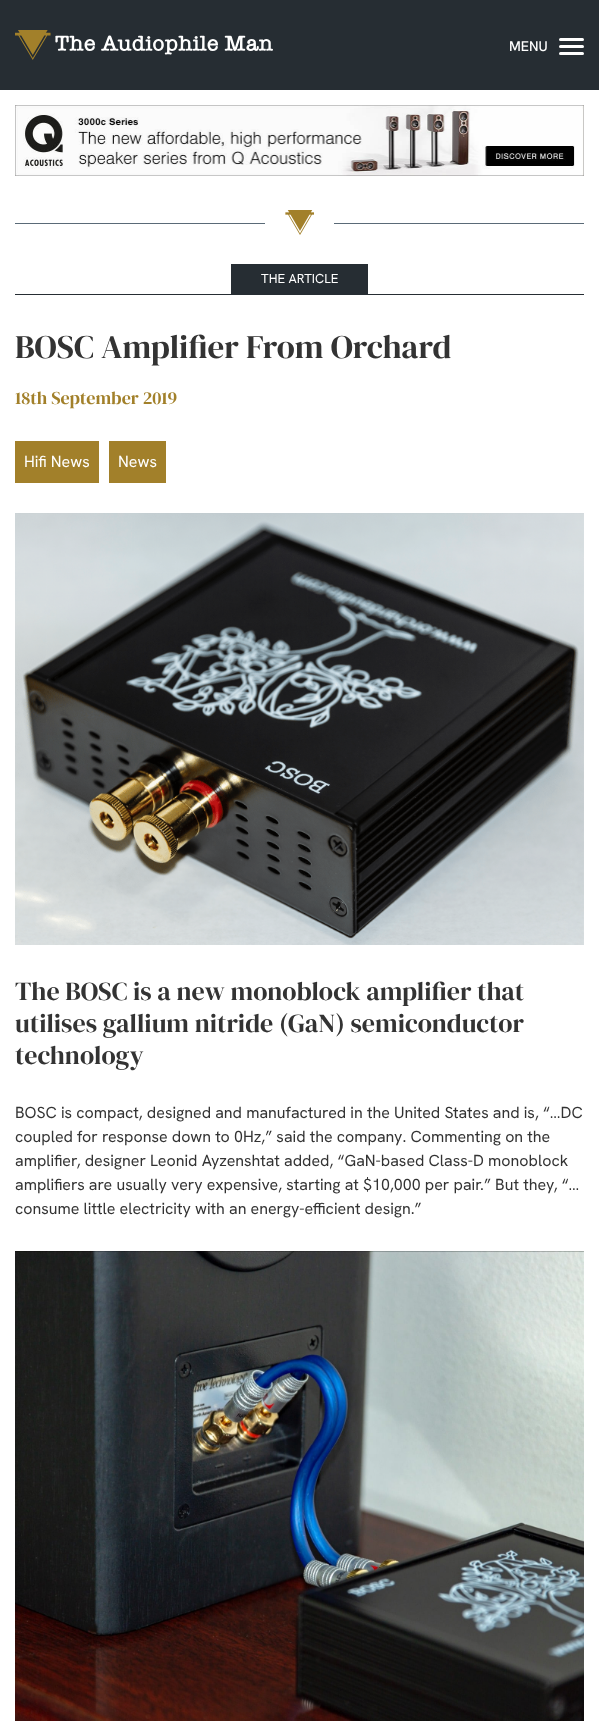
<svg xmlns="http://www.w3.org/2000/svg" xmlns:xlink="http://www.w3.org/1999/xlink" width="599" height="1722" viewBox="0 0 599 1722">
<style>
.cls-1{font:500 14px Hanken Grotesk;fill:#ffffff}
.cls-2{font:13px Hanken Grotesk;fill:#ffffff}
.cls-3{font:33px DM Serif Display;fill:#333333}
.cls-4{font:18px DM Serif Display;fill:#a2802a}
.cls-5{font:16px Hanken Grotesk;fill:#ffffff}
.cls-6{font:26px DM Serif Display;fill:#333333}
.cls-7{font:16px Hanken Grotesk;fill:#333333}
</style>
<rect width="100%" height="100%" fill="#ffffff"/>
<rect fill="#262d33" x="0" y="0" width="599" height="90"/>
<image xlink:href="image0.png" x="15" y="30" width="258" height="30"/>
<rect fill="#ffffff" x="559" y="38" width="25" height="3" rx="1.5"/>
<rect fill="#ffffff" x="559" y="45" width="25" height="3" rx="1.5"/>
<rect fill="#ffffff" x="559" y="52" width="25" height="3" rx="1.5"/>
<image xlink:href="image1.png" x="15" y="105" width="569" height="71"/>
<rect fill="#5a6a77" x="15" y="223" width="569" height="1"/>
<rect fill="#ffffff" x="265" y="223" width="69" height="1"/>
<image xlink:href="image2.png" x="285" y="210" width="29" height="25"/>
<rect fill="#262d33" x="15" y="294" width="569" height="1"/>
<rect fill="#262d33" x="231" y="264" width="137" height="30"/>
<rect fill="#a2802a" x="15" y="441" width="84" height="42"/>
<rect fill="#a2802a" x="109" y="441" width="57" height="42"/>
<image xlink:href="image3.png" x="15" y="513" width="569" height="432"/>
<image xlink:href="image4.png" x="15" y="1251" width="569" height="470"/>
<text class="cls-1" x="509" y="51">MENU</text>
<text class="cls-2" x="261" y="283">THE ARTICLE</text>
<text class="cls-3" x="15" y="358">BOSC Amplifier From Orchard</text>
<text class="cls-4" x="15" y="404">18th September 2019</text>
<text class="cls-5" x="24" y="467">Hifi News</text>
<text class="cls-5" x="118" y="467">News</text>
<text class="cls-6"><tspan x="15" y="1000">The BOSC is a new monoblock amplifier that</tspan><tspan x="15" y="1032">utilises gallium nitride (GaN) semiconductor</tspan><tspan x="15" y="1064">technology</tspan></text>
<text class="cls-7"><tspan x="15" y="1118">BOSC is compact, designed and manufactured in the United States and is, “…DC</tspan><tspan x="15" y="1142">coupled for response down to 0Hz,” said the company. Commenting on the</tspan><tspan x="15" y="1166">amplifier, designer Leonid Ayzenshtat added, “GaN-based Class-D monoblock</tspan><tspan x="15" y="1190">amplifiers are usually very expensive, starting at $10,000 per pair.” But they, “…</tspan><tspan x="15" y="1214">consume little electricity with an energy-efficient design.”</tspan></text>
</svg>
